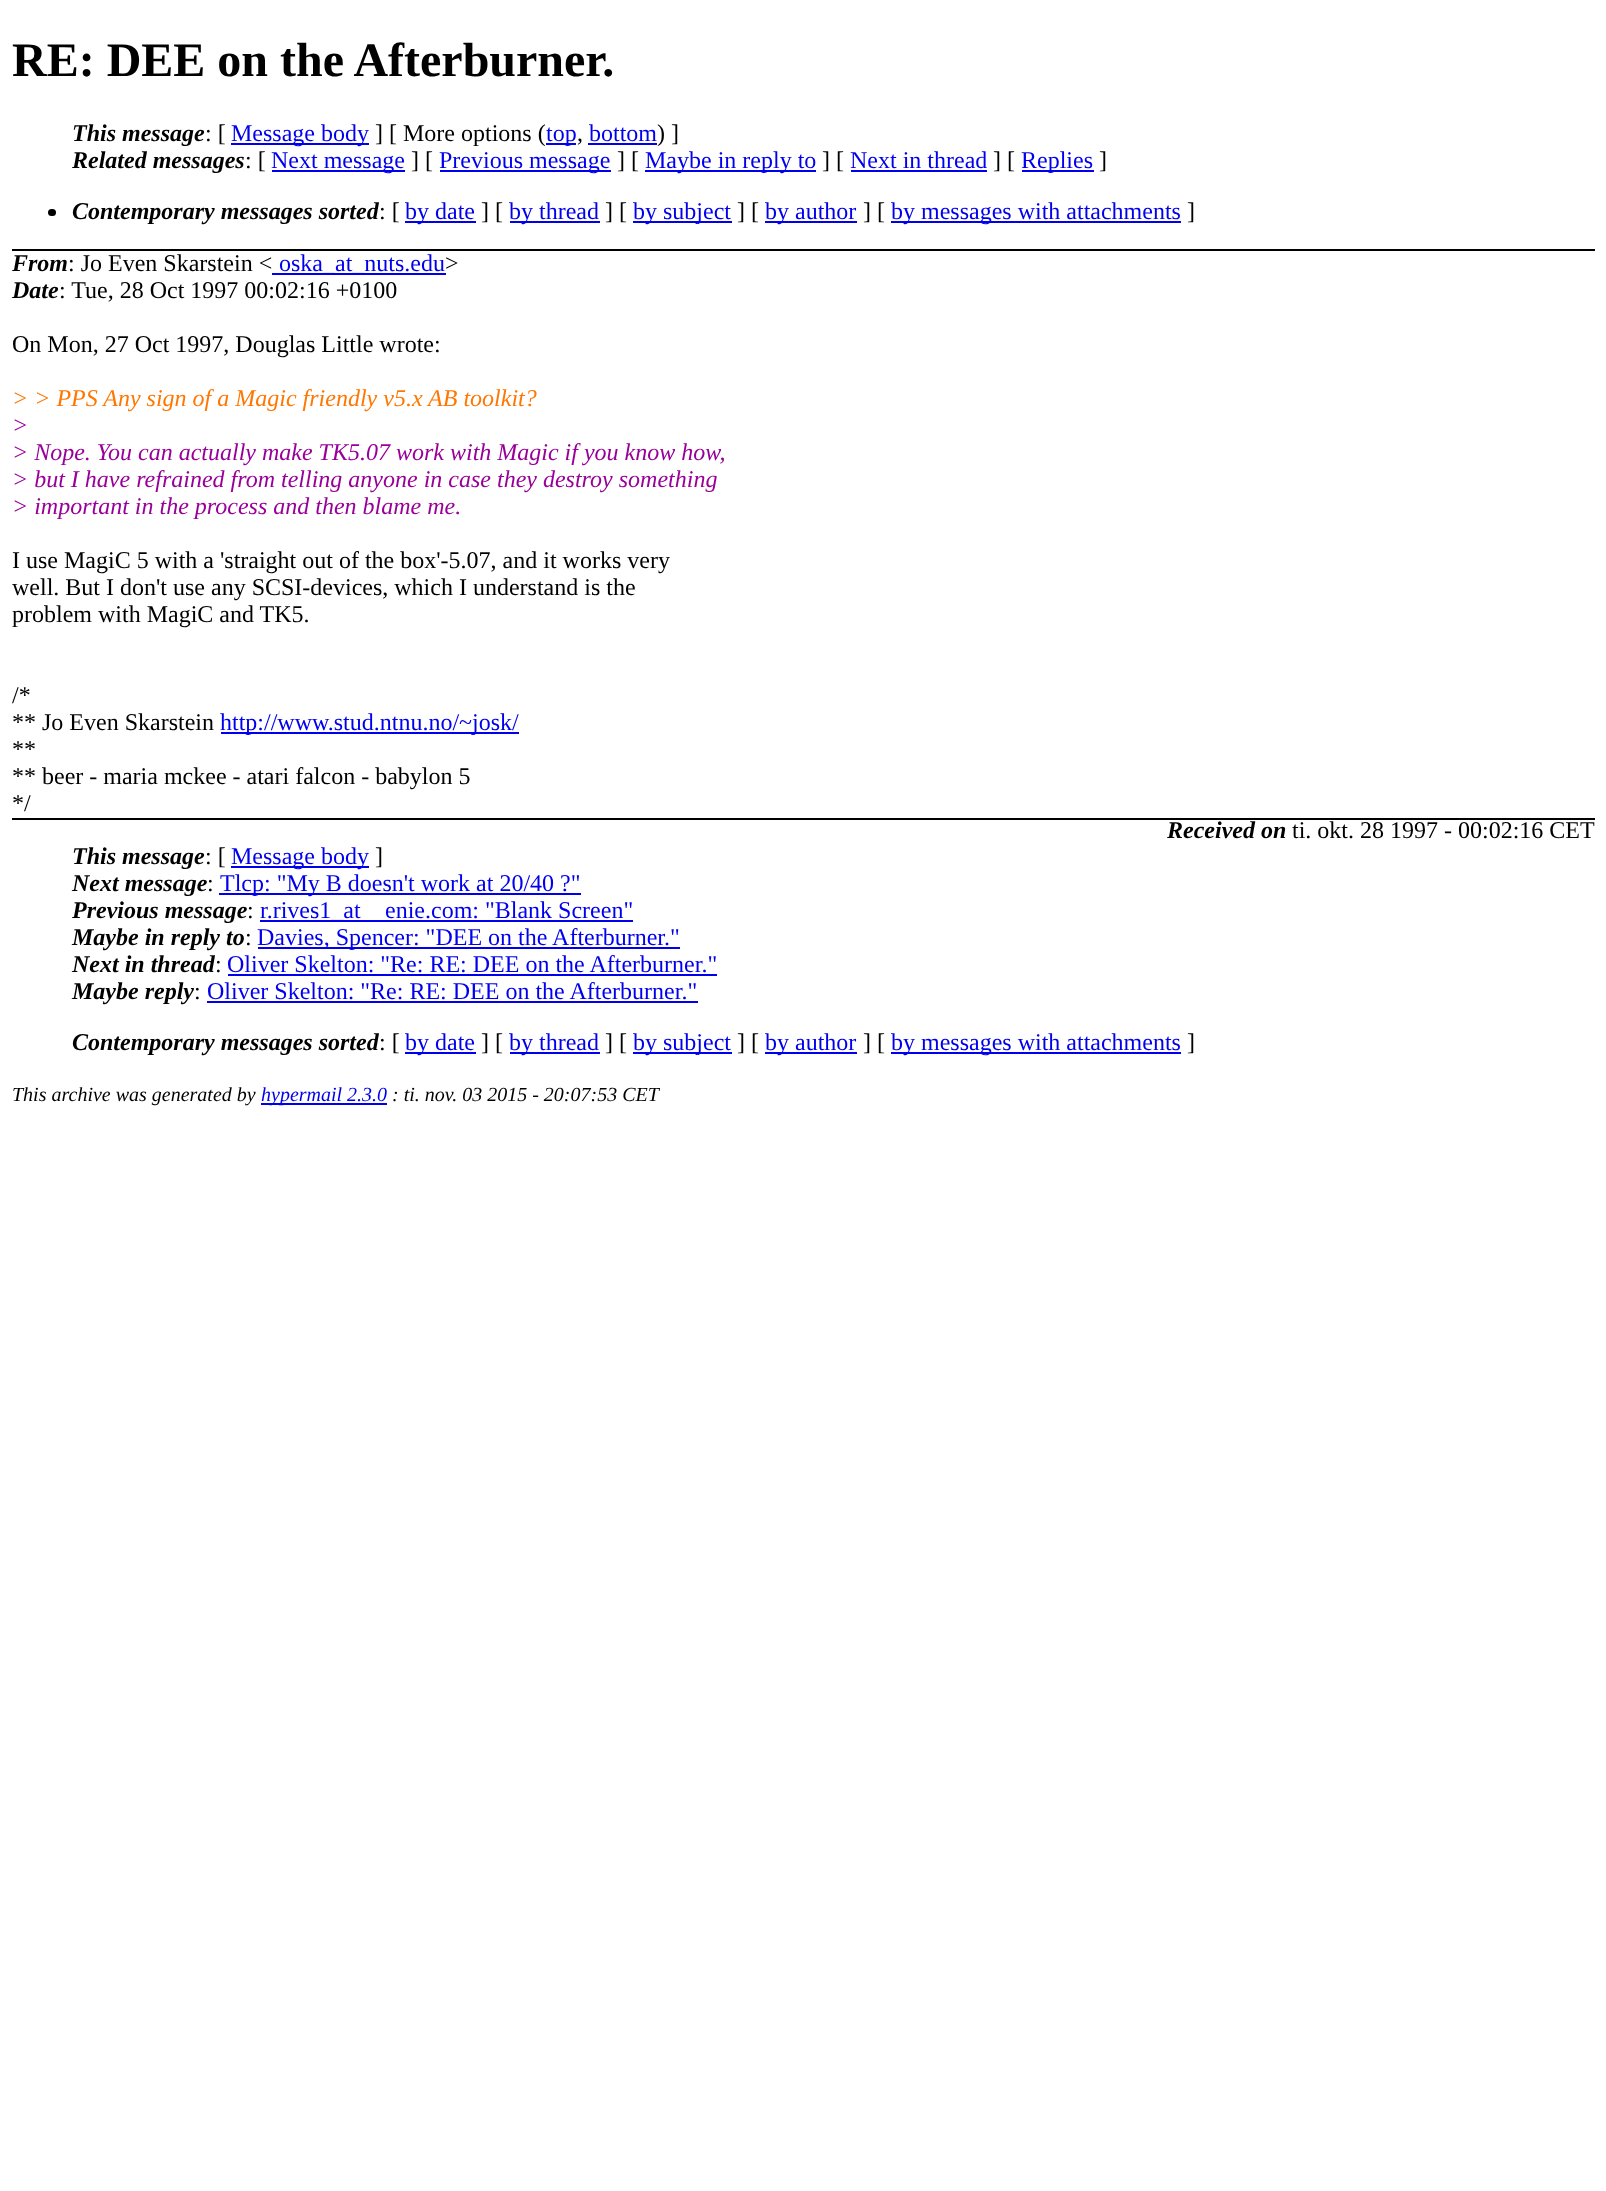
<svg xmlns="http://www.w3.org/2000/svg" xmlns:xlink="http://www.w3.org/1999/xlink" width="1606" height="2191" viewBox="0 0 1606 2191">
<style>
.cls-1{font:bold 48px Liberation Serif;fill:#000000}
.cls-2{font:italic bold 24px Liberation Serif;fill:#000000}
.cls-3{font:24px Liberation Serif;fill:#000000}
.cls-4{font:24px Liberation Serif;fill:#0000ee}
.cls-5{font:italic 24px Liberation Serif;fill:#ff7700}
.cls-6{font:italic 24px Liberation Serif;fill:#990099}
.cls-7{font:italic 20px Liberation Serif;fill:#000000}
.cls-8{font:italic 20px Liberation Serif;fill:#0000ee}
</style>
<rect width="100%" height="100%" fill="#ffffff"/>
<rect fill="#000000" x="12" y="249" width="1583" height="2"/>
<rect fill="#0000ee" x="231" y="143" width="138" height="2"/>
<rect fill="#0000ee" x="546" y="143" width="30" height="2"/>
<rect fill="#0000ee" x="588" y="143" width="69" height="2"/>
<rect fill="#0000ee" x="272" y="170" width="133" height="2"/>
<rect fill="#0000ee" x="440" y="170" width="171" height="2"/>
<rect fill="#0000ee" x="645" y="170" width="171" height="2"/>
<rect fill="#0000ee" x="851" y="170" width="136" height="2"/>
<rect fill="#0000ee" x="1022" y="170" width="72" height="2"/>
<rect fill="#000000" x="48" y="209" width="8" height="7" rx="3.5"/>
<rect fill="#0000ee" x="405" y="221" width="71" height="2"/>
<rect fill="#0000ee" x="510" y="221" width="90" height="2"/>
<rect fill="#0000ee" x="633" y="221" width="99" height="2"/>
<rect fill="#0000ee" x="765" y="221" width="92" height="2"/>
<rect fill="#0000ee" x="891" y="221" width="290" height="2"/>
<rect fill="#0000ee" x="272" y="273" width="174" height="2"/>
<rect fill="#0000ee" x="221" y="732" width="298" height="2"/>
<rect fill="#000000" x="12" y="818" width="1583" height="2"/>
<rect fill="#0000ee" x="231" y="866" width="138" height="2"/>
<rect fill="#0000ee" x="219" y="893" width="362" height="2"/>
<rect fill="#0000ee" x="260" y="920" width="373" height="2"/>
<rect fill="#0000ee" x="258" y="947" width="422" height="2"/>
<rect fill="#0000ee" x="228" y="974" width="489" height="2"/>
<rect fill="#0000ee" x="207" y="1001" width="491" height="2"/>
<rect fill="#0000ee" x="405" y="1052" width="71" height="2"/>
<rect fill="#0000ee" x="510" y="1052" width="90" height="2"/>
<rect fill="#0000ee" x="633" y="1052" width="99" height="2"/>
<rect fill="#0000ee" x="765" y="1052" width="92" height="2"/>
<rect fill="#0000ee" x="891" y="1052" width="290" height="2"/>
<rect fill="#0000ee" x="261" y="1103" width="126" height="2"/>
<text class="cls-1" x="12" y="76">RE: DEE on the Afterburner.</text>
<text class="cls-2" x="72" y="141">This message</text>
<text class="cls-3" x="205" y="141">: [</text>
<text class="cls-4" x="231" y="141">Message body</text>
<text class="cls-3" x="375" y="141">] [ More options (</text>
<text class="cls-4" x="546" y="141">top</text>
<text class="cls-3" x="577" y="141">,</text>
<text class="cls-4" x="589" y="141">bottom</text>
<text class="cls-3" x="657" y="141">) ]</text>
<text class="cls-2" x="72" y="168">Related messages</text>
<text class="cls-3" x="245" y="168">: [</text>
<text class="cls-4" x="271" y="168">Next message</text>
<text class="cls-3" x="411" y="168">] [</text>
<text class="cls-4" x="439" y="168">Previous message</text>
<text class="cls-3" x="617" y="168">] [</text>
<text class="cls-4" x="645" y="168">Maybe in reply to</text>
<text class="cls-3" x="822" y="168">] [</text>
<text class="cls-4" x="850" y="168">Next in thread</text>
<text class="cls-3" x="993" y="168">] [</text>
<text class="cls-4" x="1021" y="168">Replies</text>
<text class="cls-3" x="1099" y="168">]</text>
<text class="cls-2" x="72" y="219">Contemporary messages sorted</text>
<text class="cls-3" x="379" y="219">: [</text>
<text class="cls-4" x="405" y="219">by date</text>
<text class="cls-3" x="481" y="219">] [</text>
<text class="cls-4" x="509" y="219">by thread</text>
<text class="cls-3" x="605" y="219">] [</text>
<text class="cls-4" x="633" y="219">by subject</text>
<text class="cls-3" x="737" y="219">] [</text>
<text class="cls-4" x="765" y="219">by author</text>
<text class="cls-3" x="863" y="219">] [</text>
<text class="cls-4" x="891" y="219">by messages with attachments</text>
<text class="cls-3" x="1187" y="219">]</text>
<text class="cls-2" x="12" y="271">From</text>
<text class="cls-3" x="68" y="271">: Jo Even Skarstein &lt;</text>
<text class="cls-4" x="279" y="271">oska_at_nuts.edu</text>
<text class="cls-3" x="445" y="271">&gt;</text>
<text class="cls-2" x="12" y="298">Date</text>
<text class="cls-3" x="59" y="298">: Tue, 28 Oct 1997 00:02:16 +0100</text>
<text class="cls-3" x="12" y="352">On Mon, 27 Oct 1997, Douglas Little wrote:</text>
<text class="cls-5" x="12" y="406">&gt; &gt; PPS Any sign of a Magic friendly v5.x AB toolkit?</text>
<text class="cls-6"><tspan x="12" y="433">&gt;</tspan><tspan x="12" y="460">&gt; Nope. You can actually make TK5.07 work with Magic if you know how,</tspan><tspan x="12" y="487">&gt; but I have refrained from telling anyone in case they destroy something</tspan><tspan x="12" y="514">&gt; important in the process and then blame me.</tspan></text>
<text class="cls-3"><tspan x="12" y="568">I use MagiC 5 with a 'straight out of the box'-5.07, and it works very</tspan><tspan x="12" y="595">well. But I don't use any SCSI-devices, which I understand is the</tspan><tspan x="12" y="622">problem with MagiC and TK5.</tspan></text>
<text class="cls-3"><tspan x="12" y="703">/*</tspan><tspan x="12" y="730">** Jo Even Skarstein</tspan></text>
<text class="cls-4" x="220" y="730">http://www.stud.ntnu.no/~josk/</text>
<text class="cls-3"><tspan x="12" y="757">**</tspan><tspan x="12" y="784">** beer - maria mckee - atari falcon - babylon 5</tspan><tspan x="12" y="811">*/</tspan></text>
<text class="cls-2" x="1167" y="838">Received on</text>
<text class="cls-3" x="1292" y="838">ti. okt. 28 1997 - 00:02:16 CET</text>
<text class="cls-2" x="72" y="864">This message</text>
<text class="cls-3" x="205" y="864">: [</text>
<text class="cls-4" x="231" y="864">Message body</text>
<text class="cls-3" x="375" y="864">]</text>
<text class="cls-2" x="72" y="891">Next message</text>
<text class="cls-3" x="207" y="891">:</text>
<text class="cls-4" x="220" y="891">Tlcp: "My B doesn't work at 20/40 ?"</text>
<text class="cls-2" x="72" y="918">Previous message</text>
<text class="cls-3" x="247" y="918">:</text>
<text class="cls-4" x="260" y="918">r.rives1_at</text>
<text class="cls-4" x="385" y="918">enie.com: "Blank Screen"</text>
<text class="cls-2" x="72" y="945">Maybe in reply to</text>
<text class="cls-3" x="245" y="945">:</text>
<text class="cls-4" x="257" y="945">Davies, Spencer: "DEE on the Afterburner."</text>
<text class="cls-2" x="72" y="972">Next in thread</text>
<text class="cls-3" x="215" y="972">:</text>
<text class="cls-4" x="227" y="972">Oliver Skelton: "Re: RE: DEE on the Afterburner."</text>
<text class="cls-2" x="72" y="999">Maybe reply</text>
<text class="cls-3" x="194" y="999">:</text>
<text class="cls-4" x="207" y="999">Oliver Skelton: "Re: RE: DEE on the Afterburner."</text>
<text class="cls-2" x="72" y="1050">Contemporary messages sorted</text>
<text class="cls-3" x="379" y="1050">: [</text>
<text class="cls-4" x="405" y="1050">by date</text>
<text class="cls-3" x="481" y="1050">] [</text>
<text class="cls-4" x="509" y="1050">by thread</text>
<text class="cls-3" x="605" y="1050">] [</text>
<text class="cls-4" x="633" y="1050">by subject</text>
<text class="cls-3" x="737" y="1050">] [</text>
<text class="cls-4" x="765" y="1050">by author</text>
<text class="cls-3" x="863" y="1050">] [</text>
<text class="cls-4" x="891" y="1050">by messages with attachments</text>
<text class="cls-3" x="1187" y="1050">]</text>
<text class="cls-7" x="12" y="1101">This archive was generated by</text>
<text class="cls-8" x="261" y="1101">hypermail 2.3.0</text>
<text class="cls-7" x="392" y="1101">: ti. nov. 03 2015 - 20:07:53 CET</text>
</svg>
